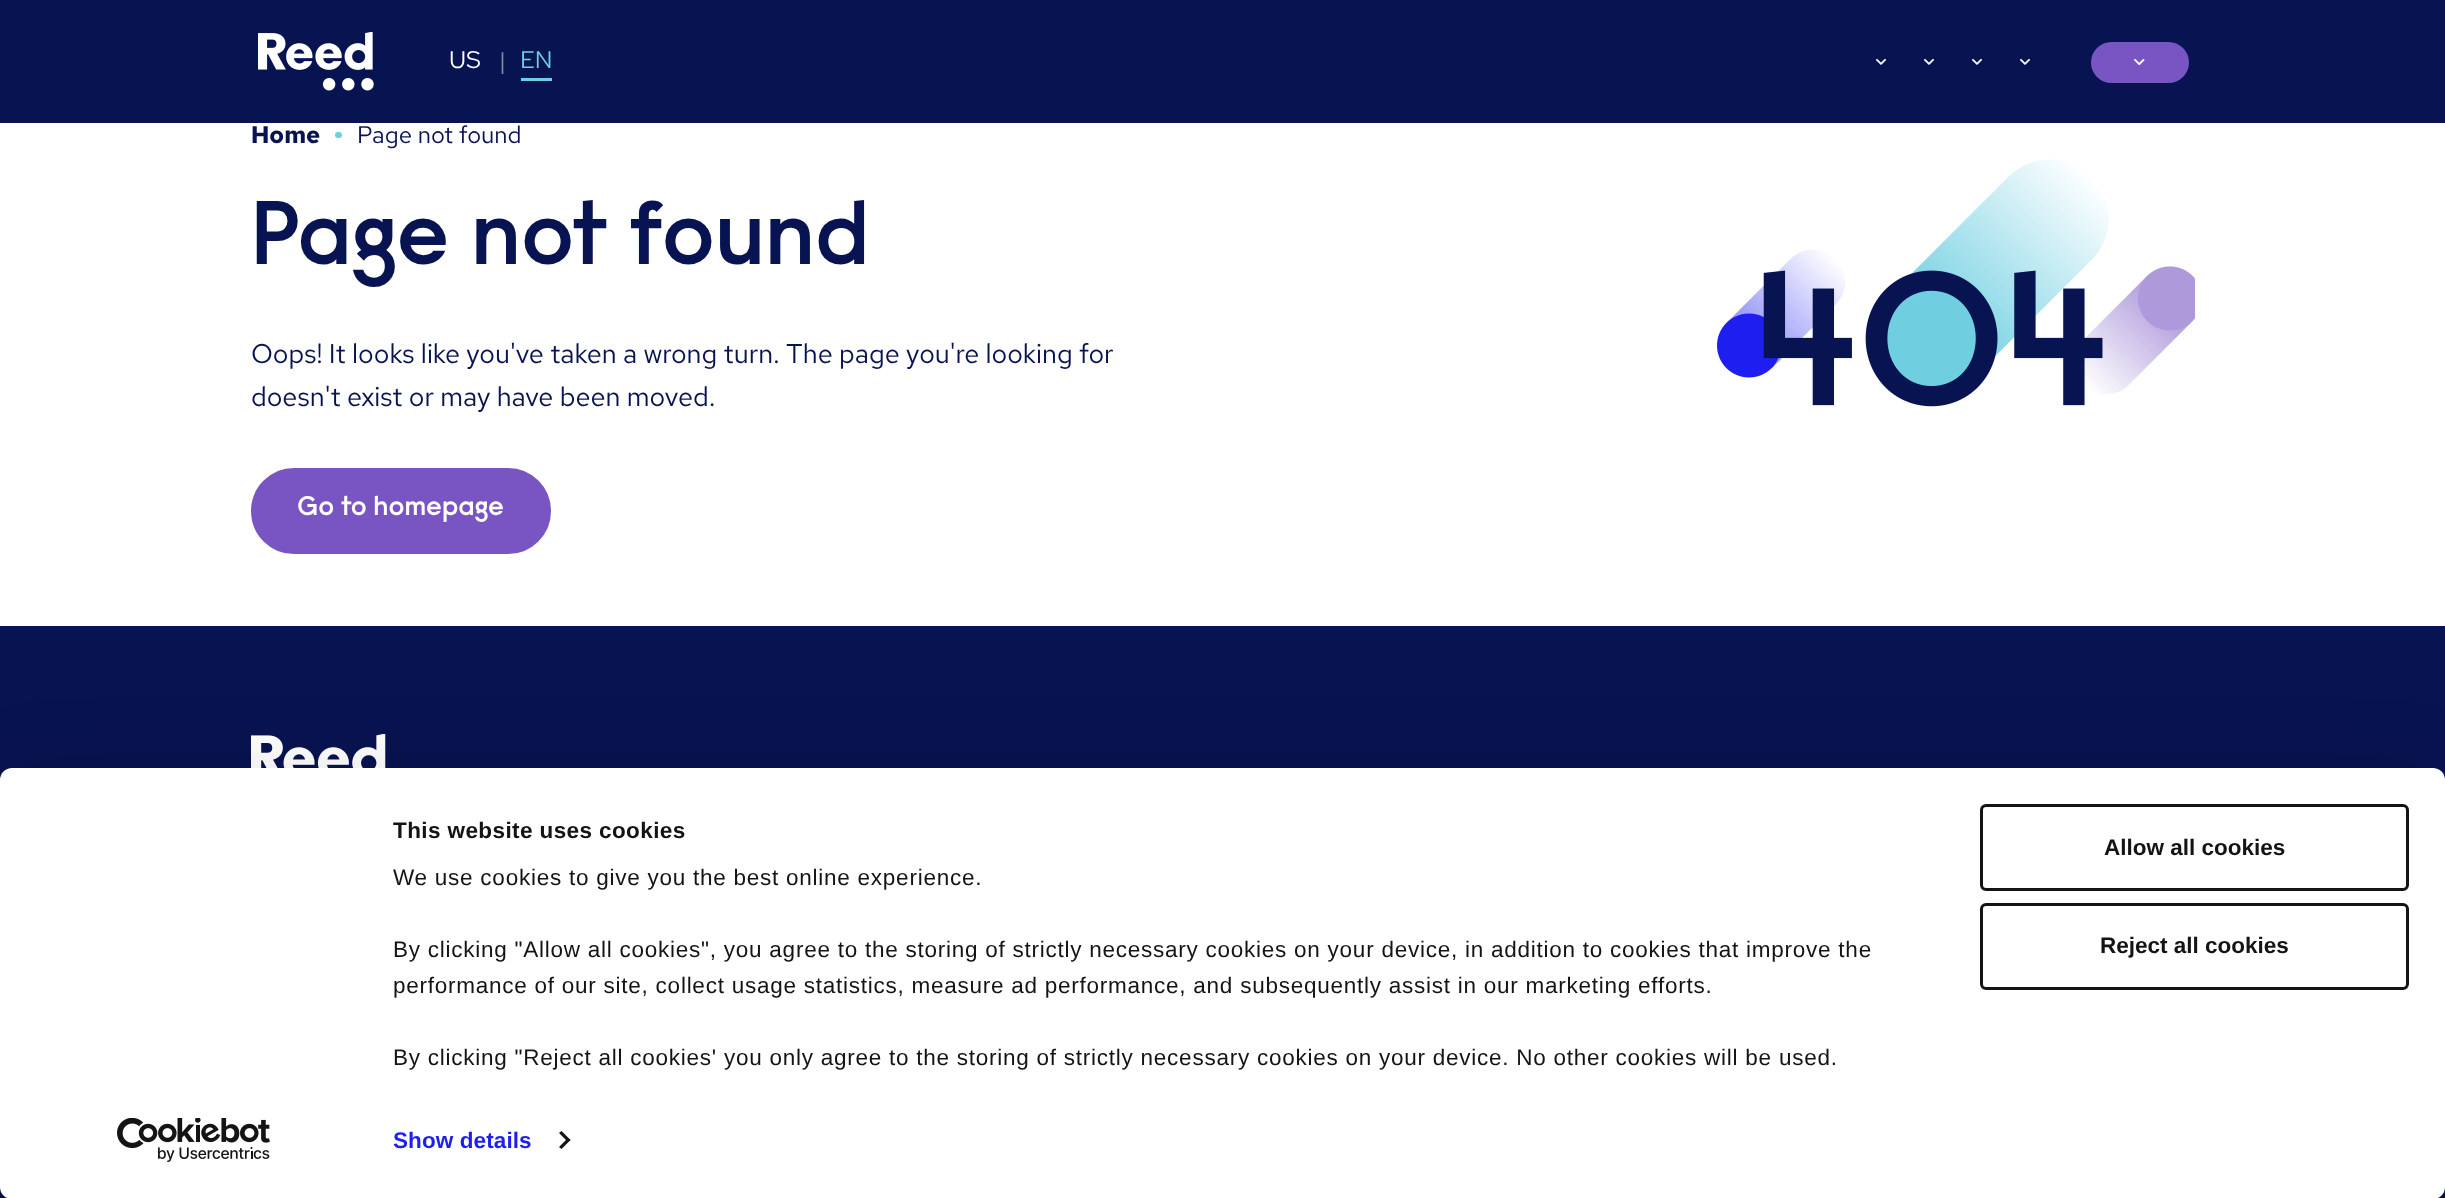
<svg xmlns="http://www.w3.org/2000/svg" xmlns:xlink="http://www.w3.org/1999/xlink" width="2445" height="1198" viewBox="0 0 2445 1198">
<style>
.cls-1{font:24px Red Hat Text;fill:#ffffff}
.cls-2{font:24px Red Hat Text;fill:#8489a8}
.cls-3{font:24px Red Hat Text;fill:#6fcfe1}
.cls-4{font:bold 24px Red Hat Text;fill:#081351}
.cls-5{font:24px Red Hat Text;fill:#081351}
.cls-6{font:600 90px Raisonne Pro;fill:#081351}
.cls-7{font:27px Red Hat Text;fill:#081351}
.cls-8{font:600 27px Raisonne Pro;fill:#ffffff}
.cls-9{font:bold 22.5px Liberation Sans;letter-spacing:0.4px;fill:#141414}
.cls-10{font:22.5px Liberation Sans;letter-spacing:0.75px;fill:#141414}
.cls-11{font:bold 22.5px Liberation Sans;letter-spacing:0.1px;fill:#1e1ef0}
.cls-12{font:bold 22.5px Liberation Sans;fill:#141414}
</style>
<rect width="100%" height="100%" fill="#ffffff"/>
<rect fill="#081351" x="0" y="0" width="2445" height="123"/>
<image xlink:href="image0.png" x="258" y="32" width="116" height="59"/>
<rect fill="#6fcfe1" x="521" y="78" width="31" height="3"/>
<image xlink:href="image1.png" x="1876" y="59" width="10" height="6"/>
<image xlink:href="image1.png" x="1924" y="59" width="10" height="6"/>
<image xlink:href="image1.png" x="1972" y="59" width="10" height="6"/>
<image xlink:href="image1.png" x="2020" y="59" width="10" height="6"/>
<rect fill="#7855c3" stroke="#7855c3" stroke-width="5" x="2093.5" y="44.5" width="93" height="36" rx="18"/>
<image xlink:href="image2.png" x="2134" y="59" width="11" height="6"/>
<rect fill="#6fcfe1" x="335" y="132" width="7" height="6" rx="3"/>
<rect fill="#7855c3" stroke="#7855c3" stroke-width="5" x="253.5" y="470.5" width="295" height="81" rx="40.5"/>
<image xlink:href="image3.png" x="1717" y="159" width="478" height="248"/>
<rect fill="#081351" x="0" y="626" width="2445" height="572"/>
<image xlink:href="image4.png" x="251" y="734" width="135" height="34"/>
<rect fill="#000000" fill-opacity="0.3" filter="blur(52.5px)" x="0" y="813" width="2445" height="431" rx="12"/>
<rect fill="#ffffff" x="0" y="768" width="2445" height="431" rx="12"/>
<path fill="#141414" d="M561.5 1131L570.5 1140L568 1142L559 1133Z"/>
<path fill="#141414" d="M568 1138L570.5 1140L561.5 1149L559 1147Z"/>
<rect fill="none" stroke="#141414" stroke-width="3" x="1981.5" y="805.5" width="426" height="84" rx="4.5"/>
<rect fill="none" stroke="#141414" stroke-width="3" x="1981.5" y="904.5" width="426" height="84" rx="4.5"/>
<image xlink:href="image5.png" x="117" y="1118" width="153" height="44"/>
<text class="cls-1" x="449" y="68">US</text>
<text class="cls-2" x="499" y="69">|</text>
<text class="cls-3" x="520" y="68">EN</text>
<text class="cls-4" x="251" y="143">Home</text>
<text class="cls-5" x="357" y="143">Page not found</text>
<text class="cls-6" x="251" y="264">Page not found</text>
<text class="cls-7"><tspan x="251" y="363">Oops! It looks like you've taken a wrong turn. The page you're looking for</tspan><tspan x="251" y="406">doesn't exist or may have been moved.</tspan></text>
<text class="cls-8" x="297" y="515">Go to homepage</text>
<text class="cls-9" x="393" y="838">This website uses cookies</text>
<text class="cls-10" x="393" y="885">We use cookies to give you the best online experience.</text>
<text class="cls-10"><tspan x="393" y="957">By clicking "Allow all cookies", you agree to the storing of strictly necessary cookies on your device, in addition to cookies that improve the</tspan><tspan x="393" y="993">performance of our site, collect usage statistics, measure ad performance, and subsequently assist in our marketing efforts.</tspan></text>
<text class="cls-10" x="393" y="1065">By clicking "Reject all cookies' you only agree to the storing of strictly necessary cookies on your device. No other cookies will be used.</text>
<text class="cls-11" x="393" y="1148">Show details</text>
<text class="cls-12" x="2104" y="855">Allow all cookies</text>
<text class="cls-12" x="2100" y="953">Reject all cookies</text>
</svg>
